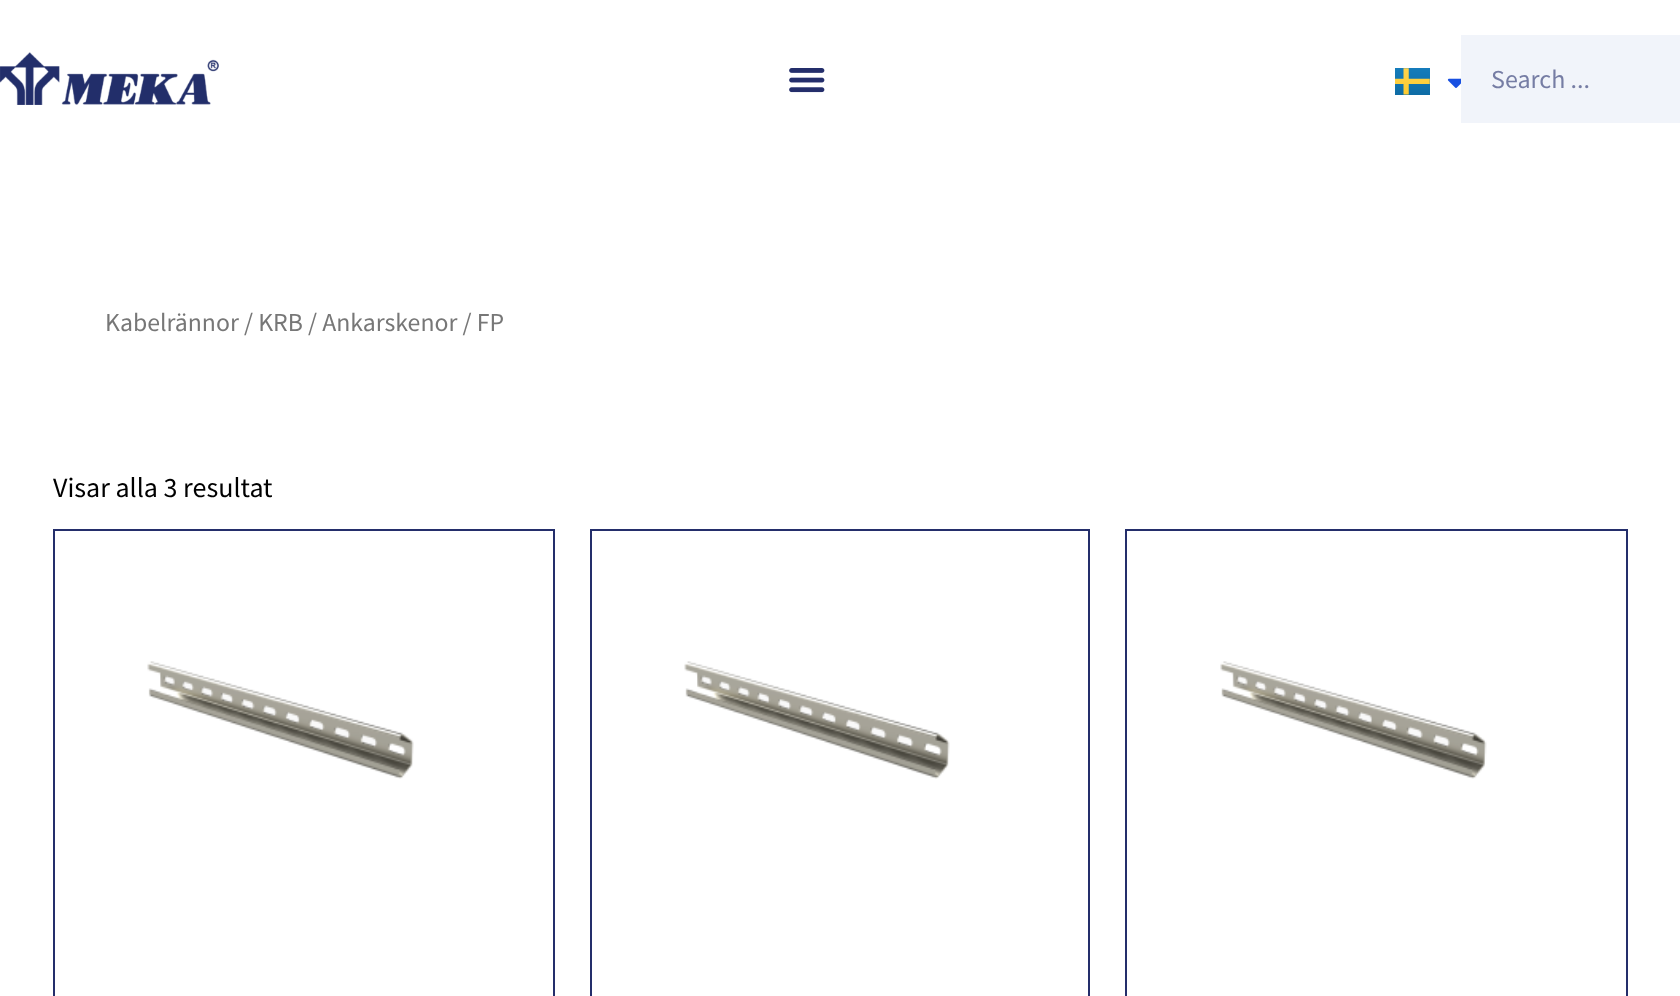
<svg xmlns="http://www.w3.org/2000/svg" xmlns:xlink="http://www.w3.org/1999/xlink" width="1680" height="996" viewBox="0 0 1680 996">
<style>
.cls-1{font:26px Source Sans Pro;fill:#767da4}
.cls-2{font:25.75px Source Sans Pro;fill:#777777}
.cls-3{font:28px Source Sans Pro;fill:#000000}
</style>
<rect width="100%" height="100%" fill="#ffffff"/>
<image xlink:href="image0.png" x="0" y="52" width="219" height="53"/>
<image xlink:href="image1.png" x="789" y="68" width="36" height="25"/>
<image xlink:href="image2.png" x="1395" y="68" width="35" height="27"/>
<image xlink:href="image3.png" x="1447" y="78" width="14" height="10"/>
<rect fill="#f1f4fa" x="1461" y="35" width="219" height="88"/>
<rect fill="none" stroke="#242e6b" stroke-width="2" x="54" y="530" width="500" height="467"/>
<image xlink:href="image4.png" x="147" y="661" width="267" height="118"/>
<rect fill="none" stroke="#242e6b" stroke-width="2" x="591" y="530" width="498" height="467"/>
<image xlink:href="image5.png" x="684" y="661" width="266" height="118"/>
<rect fill="none" stroke="#242e6b" stroke-width="2" x="1126" y="530" width="501" height="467"/>
<image xlink:href="image6.png" x="1220" y="661" width="267" height="118"/>
<text class="cls-1" x="1491" y="88">Search ...</text>
<text class="cls-2" x="105" y="331">Kabelrännor / KRB / Ankarskenor / FP</text>
<text class="cls-3" x="53" y="497">Visar alla 3 resultat</text>
</svg>
